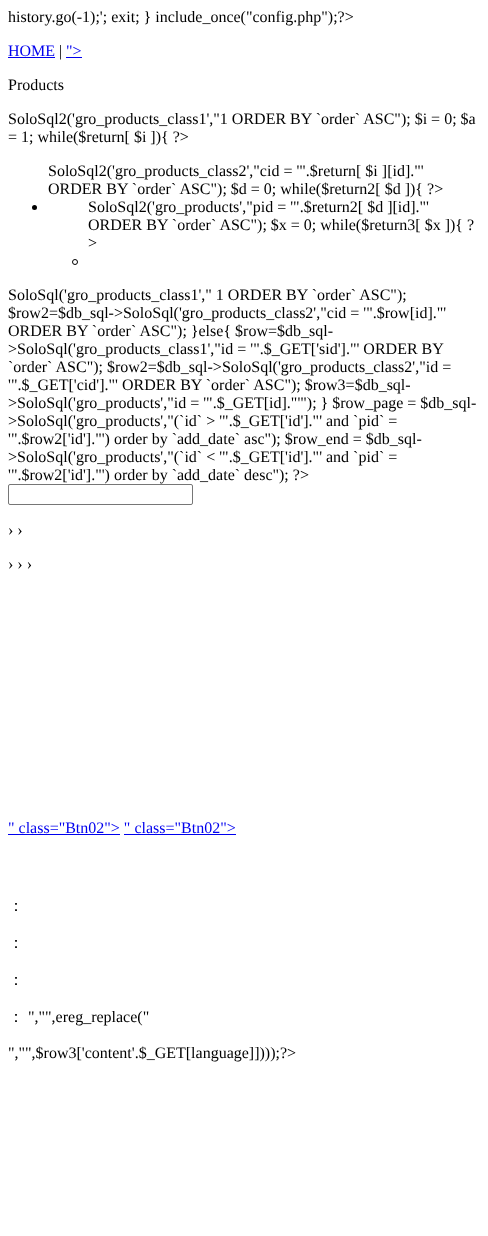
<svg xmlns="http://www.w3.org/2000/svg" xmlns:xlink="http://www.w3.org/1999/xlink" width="488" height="1236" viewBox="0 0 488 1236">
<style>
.cls-1{font:16px Liberation Serif;fill:#000000}
.cls-2{font:16px Liberation Serif;fill:#0000ee}
.cls-3{font:500 16px WenQuanYi Zen Hei;fill:#000000}
</style>
<rect width="100%" height="100%" fill="#ffffff"/>
<rect fill="#0000ee" x="8" y="57" width="47" height="1"/>
<rect fill="#0000ee" x="66" y="57" width="16" height="1"/>
<circle fill="#000000" cx="34.5" cy="207.5" r="2.5"/>
<circle fill="none" stroke="#000000" cx="75" cy="262" r="2.5"/>
<rect fill="none" stroke="#767676" x="8.5" y="484.5" width="184" height="20" rx="1.5"/>
<rect fill="#0000ee" x="8" y="834" width="112" height="1"/>
<rect fill="#0000ee" x="124" y="834" width="112" height="1"/>
<text class="cls-1" x="8" y="22">history.go(-1);'; exit; } include_once("config.php");?&gt;</text>
<text class="cls-2" x="8" y="56">HOME</text>
<text class="cls-1" x="59" y="56">|</text>
<text class="cls-2" x="66" y="56">"&gt;</text>
<text class="cls-1" x="8" y="90">Products</text>
<text class="cls-1"><tspan x="8" y="124">SoloSql2('gro_products_class1',"1 ORDER BY `order` ASC"); $i = 0; $a</tspan><tspan x="8" y="142">= 1; while($return[ $i ]){ ?&gt;</tspan></text>
<text class="cls-1"><tspan x="48" y="176">SoloSql2('gro_products_class2',"cid = '".$return[ $i ][id]."'</tspan><tspan x="48" y="194">ORDER BY `order` ASC"); $d = 0; while($return2[ $d ]){ ?&gt;</tspan></text>
<text class="cls-1"><tspan x="88" y="212">SoloSql2('gro_products',"pid = '".$return2[ $d ][id]."'</tspan><tspan x="88" y="230">ORDER BY `order` ASC"); $x = 0; while($return3[ $x ]){ ?</tspan><tspan x="88" y="248">&gt;</tspan></text>
<text class="cls-1"><tspan x="8" y="300">SoloSql('gro_products_class1'," 1 ORDER BY `order` ASC");</tspan><tspan x="8" y="318">$row2=$db_sql-&gt;SoloSql('gro_products_class2',"cid = '".$row[id]."'</tspan><tspan x="8" y="336">ORDER BY `order` ASC"); }else{ $row=$db_sql-</tspan><tspan x="8" y="354">&gt;SoloSql('gro_products_class1',"id = '".$_GET['sid']."' ORDER BY</tspan><tspan x="8" y="372">`order` ASC"); $row2=$db_sql-&gt;SoloSql('gro_products_class2',"id =</tspan><tspan x="8" y="390">'".$_GET['cid']."' ORDER BY `order` ASC"); $row3=$db_sql-</tspan><tspan x="8" y="408">&gt;SoloSql('gro_products',"id = '".$_GET[id]."'"); } $row_page = $db_sql-</tspan><tspan x="8" y="426">&gt;SoloSql('gro_products',"(`id` &gt; '".$_GET['id']."' and `pid` =</tspan><tspan x="8" y="444">'".$row2['id']."') order by `add_date` asc"); $row_end = $db_sql-</tspan><tspan x="8" y="462">&gt;SoloSql('gro_products',"(`id` &lt; '".$_GET['id']."' and `pid` =</tspan><tspan x="8" y="480">'".$row2['id']."') order by `add_date` desc"); ?&gt;</tspan></text>
<text class="cls-1" x="8" y="535">› ›</text>
<text class="cls-1" x="8" y="569">› › ›</text>
<text class="cls-2" x="8" y="833">" class="Btn02"&gt; " class="Btn02"&gt;</text>
<text class="cls-3" x="8" y="911">：</text>
<text class="cls-3" x="8" y="948">：</text>
<text class="cls-3" x="8" y="985">：</text>
<text class="cls-3" x="8" y="1022">：</text>
<text class="cls-1" x="28" y="1022">","",ereg_replace("</text>
<text class="cls-1" x="8" y="1058">","",$row3['content'.$_GET[language]])));?&gt;</text>
</svg>
